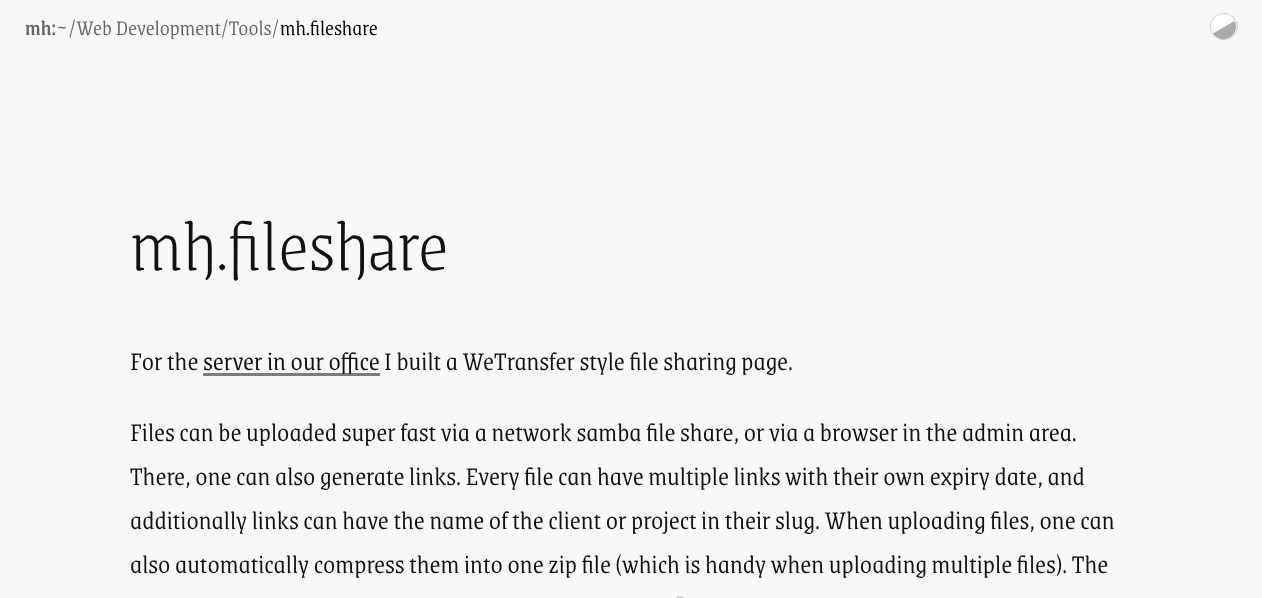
<svg xmlns="http://www.w3.org/2000/svg" xmlns:xlink="http://www.w3.org/1999/xlink" width="1262" height="598" viewBox="0 0 1262 598">
<style>
.cls-1{font:500 22.5px Grenze;fill:#666666}
.cls-2{font:300 22.5px Grenze;fill:#666666}
.cls-3{font:300 22.5px Grenze;fill:#000000}
.cls-4{font:200 77px Grenze Gotisch;fill:#111111}
.cls-5{font:300 27.5px Grenze;fill:#111111}
.cls-6{font:300 27.5px Grenze Gotisch;fill:#111111}
</style>
<rect width="100%" height="100%" fill="#f8f8f8"/>
<rect fill="none" stroke="#cccccc" x="1210.5" y="13.5" width="27" height="26" rx="13"/>
<circle fill="#ffffff" cx="1223.5" cy="26.5" r="12.5"/>
<path fill="#aaaaaa" d="M1234.5 21C1241.5 35 1221.5 46.5 1213 33.5Z"/>
<rect fill="#7c7c7c" x="203" y="373" width="177" height="3"/>
<image xlink:href="image0.png" x="676" y="597" width="8" height="1"/>
<text class="cls-1" x="25" y="35">mh:</text>
<text class="cls-2" x="56" y="35">~/Web Development/Tools/</text>
<text class="cls-3" x="280" y="35">mh.fileshare</text>
<text class="cls-4" x="130" y="270">mh.fileshare</text>
<text class="cls-5" x="130" y="370">For the</text>
<text class="cls-6" x="203" y="370">server in our office</text>
<text class="cls-5" x="384" y="370">I built a WeTransfer style file sharing page.</text>
<text class="cls-5"><tspan x="130" y="441">Files can be uploaded super fast via a network samba file share, or via a browser in the admin area.</tspan><tspan x="130" y="485">There, one can also generate links. Every file can have multiple links with their own expiry date, and</tspan><tspan x="130" y="529">additionally links can have the name of the client or project in their slug. When uploading files, one can</tspan><tspan x="130" y="573">also automatically compress them into one zip file (which is handy when uploading multiple files). The</tspan></text>
</svg>
